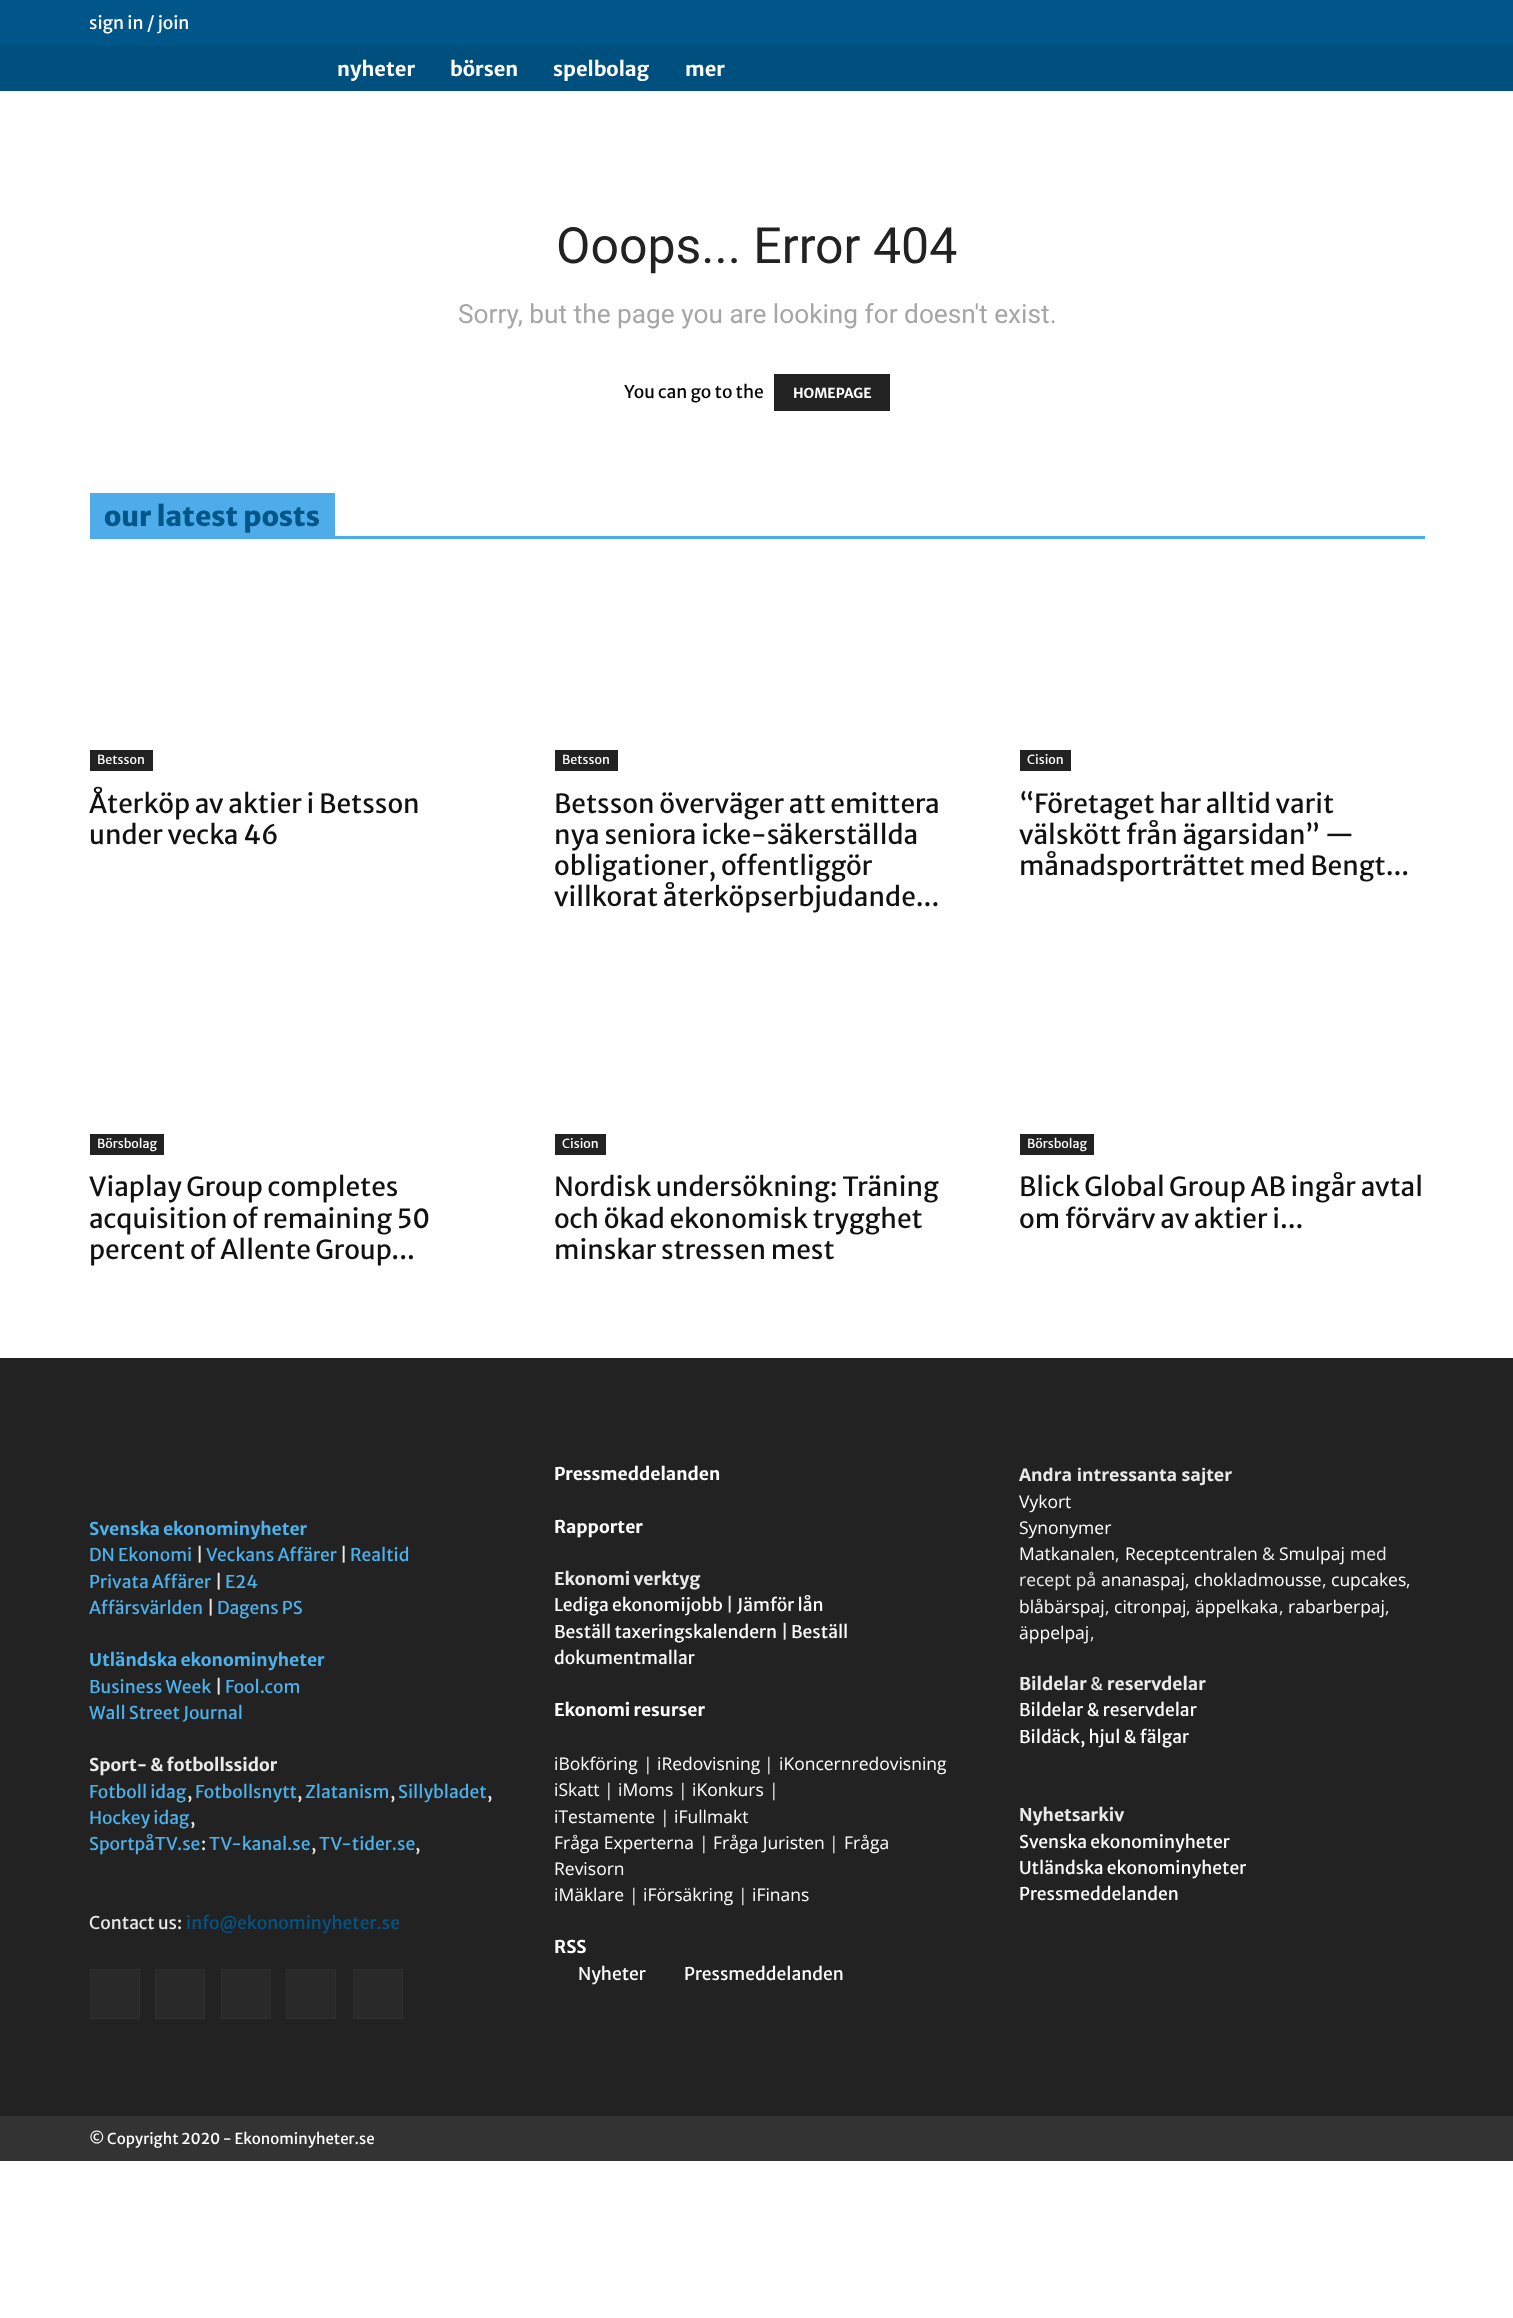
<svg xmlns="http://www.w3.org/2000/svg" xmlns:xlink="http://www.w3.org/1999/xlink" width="1513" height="2318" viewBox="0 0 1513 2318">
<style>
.cls-1{font:17.5px Merriweather Sans;fill:#ffffff}
.cls-2{font:bold 20px Merriweather Sans;fill:#ffffff}
.cls-3{font:50px Roboto;fill:#222222}
.cls-4{font:26.25px Roboto;fill:#a6a6a6}
.cls-5{font:17.5px Merriweather Sans;fill:#000000}
.cls-6{font:bold 13.75px Merriweather Sans;fill:#ffffff}
.cls-7{font:800 27.5px Merriweather Sans;fill:#005689}
.cls-8{font:12.5px Merriweather Sans;fill:#ffffff}
.cls-9{font:26.25px Merriweather Sans;fill:#111111}
.cls-10{font:bold 17.5px Merriweather Sans;fill:#4db2ec}
.cls-11{font:17.5px Merriweather Sans;fill:#4db2ec}
.cls-12{font:17.5px Merriweather Sans;fill:#eaeaea}
.cls-13{font:bold 17.5px Merriweather Sans;fill:#eaeaea}
.cls-14{font:17.5px Merriweather Sans;fill:#005689}
.cls-15{font:bold 17.5px Merriweather Sans;fill:#ffffff}
.cls-16{font:17.5px Open Sans;fill:#ffffff}
.cls-17{font:17.5px Open Sans;fill:#eaeaea}
.cls-18{font:bold 17.5px Open Sans;fill:#eaeaea}
.cls-19{font:15px Merriweather Sans;fill:#ffffff}
</style>
<rect width="100%" height="100%" fill="#ffffff"/>
<rect fill="#005689" x="0" y="0" width="1513" height="46"/>
<rect fill="#00507f" x="0" y="46" width="1513" height="45"/>
<rect fill="#222222" x="774" y="374" width="116" height="37"/>
<rect fill="#4facea" x="90" y="536" width="1335" height="3"/>
<rect fill="#4facea" x="90" y="493" width="245" height="43"/>
<rect fill="#222222" x="90" y="750" width="63" height="21"/>
<rect fill="#222222" x="555" y="750" width="63" height="21"/>
<rect fill="#222222" x="1020" y="750" width="51" height="21"/>
<rect fill="#222222" x="90" y="1134" width="74" height="21"/>
<rect fill="#222222" x="555" y="1134" width="51" height="21"/>
<rect fill="#222222" x="1020" y="1134" width="74" height="21"/>
<rect fill="#222222" x="0" y="1358" width="1513" height="758"/>
<rect fill="#292929" stroke="#2f2f2f" x="90.5" y="1969.5" width="49" height="49"/>
<rect fill="#292929" stroke="#2f2f2f" x="155.5" y="1969.5" width="49" height="49"/>
<rect fill="#292929" stroke="#2f2f2f" x="221.5" y="1969.5" width="49" height="49"/>
<rect fill="#292929" stroke="#2f2f2f" x="286.5" y="1969.5" width="49" height="49"/>
<rect fill="#292929" stroke="#2f2f2f" x="353.5" y="1969.5" width="49" height="49"/>
<rect fill="#333333" x="0" y="2116" width="1513" height="45"/>
<text class="cls-1" x="89" y="29">sign in / join</text>
<text class="cls-2" x="337" y="76">nyheter</text>
<text class="cls-2" x="450" y="76">börsen</text>
<text class="cls-2" x="553" y="76">spelbolag</text>
<text class="cls-2" x="685" y="76">mer</text>
<text class="cls-3" x="556" y="263">Ooops... Error 404</text>
<text class="cls-4" x="458" y="323">Sorry, but the page you are looking for doesn't exist.</text>
<text class="cls-5" x="624" y="398">You can go to the</text>
<text class="cls-6" x="793" y="398">HOMEPAGE</text>
<text class="cls-7" x="104" y="526">our latest posts</text>
<text class="cls-8" x="97" y="764">Betsson</text>
<text class="cls-9"><tspan x="89" y="813">Återköp av aktier i Betsson</tspan><tspan x="89" y="844">under vecka 46</tspan></text>
<text class="cls-8" x="562" y="764">Betsson</text>
<text class="cls-9"><tspan x="554" y="813">Betsson överväger att emittera</tspan><tspan x="554" y="844">nya seniora icke-säkerställda</tspan><tspan x="554" y="875">obligationer, offentliggör</tspan><tspan x="554" y="906">villkorat återköpserbjudande...</tspan></text>
<text class="cls-8" x="1027" y="764">Cision</text>
<text class="cls-9"><tspan x="1019" y="813">“Företaget har alltid varit</tspan><tspan x="1019" y="844">välskött från ägarsidan” —</tspan><tspan x="1019" y="875">månadsporträttet med Bengt...</tspan></text>
<text class="cls-8" x="97" y="1148">Börsbolag</text>
<text class="cls-9"><tspan x="89" y="1196">Viaplay Group completes</tspan><tspan x="89" y="1228">acquisition of remaining 50</tspan><tspan x="89" y="1259">percent of Allente Group...</tspan></text>
<text class="cls-8" x="562" y="1148">Cision</text>
<text class="cls-9"><tspan x="554" y="1196">Nordisk undersökning: Träning</tspan><tspan x="554" y="1228">och ökad ekonomisk trygghet</tspan><tspan x="554" y="1259">minskar stressen mest</tspan></text>
<text class="cls-8" x="1027" y="1148">Börsbolag</text>
<text class="cls-9"><tspan x="1019" y="1196">Blick Global Group AB ingår avtal</tspan><tspan x="1019" y="1228">om förvärv av aktier i...</tspan></text>
<text class="cls-10" x="89" y="1535">Svenska ekonominyheter</text>
<text class="cls-11" x="89" y="1561">DN Ekonomi</text>
<text class="cls-12" x="196" y="1561">|</text>
<text class="cls-11" x="206" y="1561">Veckans Affärer</text>
<text class="cls-12" x="340" y="1561">|</text>
<text class="cls-11" x="350" y="1561">Realtid</text>
<text class="cls-11" x="89" y="1588">Privata Affärer</text>
<text class="cls-12" x="215" y="1588">|</text>
<text class="cls-11" x="225" y="1588">E24</text>
<text class="cls-11" x="89" y="1614">Affärsvärlden</text>
<text class="cls-12" x="207" y="1614">|</text>
<text class="cls-11" x="217" y="1614">Dagens PS</text>
<text class="cls-10" x="89" y="1666">Utländska ekonominyheter</text>
<text class="cls-11" x="89" y="1693">Business Week</text>
<text class="cls-12" x="215" y="1693">|</text>
<text class="cls-11" x="225" y="1693">Fool.com</text>
<text class="cls-11" x="89" y="1719">Wall Street Journal</text>
<text class="cls-13" x="89" y="1771">Sport- &amp; fotbollssidor</text>
<text class="cls-11" x="89" y="1798">Fotboll idag</text>
<text class="cls-12" x="187" y="1798">,</text>
<text class="cls-11" x="195" y="1798">Fotbollsnytt</text>
<text class="cls-12" x="297" y="1798">,</text>
<text class="cls-11" x="305" y="1798">Zlatanism</text>
<text class="cls-12" x="390" y="1798">,</text>
<text class="cls-11" x="398" y="1798">Sillybladet</text>
<text class="cls-12" x="487" y="1798">,</text>
<text class="cls-11" x="89" y="1824">Hockey idag</text>
<text class="cls-12" x="190" y="1824">,</text>
<text class="cls-11" x="89" y="1850">SportpåTV.se</text>
<text class="cls-12" x="201" y="1850">:</text>
<text class="cls-11" x="209" y="1850">TV-kanal.se</text>
<text class="cls-12" x="311" y="1850">,</text>
<text class="cls-11" x="319" y="1850">TV-tider.se</text>
<text class="cls-12" x="415" y="1850">,</text>
<text class="cls-12" x="89" y="1929">Contact us:</text>
<text class="cls-14" x="186" y="1929">info@ekonominyheter.se</text>
<text class="cls-15" x="554" y="1480">Pressmeddelanden</text>
<text class="cls-15" x="554" y="1533">Rapporter</text>
<text class="cls-13" x="554" y="1585">Ekonomi verktyg</text>
<text class="cls-1" x="554" y="1611">Lediga ekonomijobb</text>
<text class="cls-12" x="726" y="1611">|</text>
<text class="cls-1" x="737" y="1611">Jämför lån</text>
<text class="cls-1" x="554" y="1638">Beställ taxeringskalendern</text>
<text class="cls-12" x="781" y="1638">|</text>
<text class="cls-1" x="791" y="1638">Beställ</text>
<text class="cls-1" x="554" y="1664">dokumentmallar</text>
<text class="cls-15" x="554" y="1716">Ekonomi resurser</text>
<text class="cls-16" x="554" y="1770">iBokföring</text>
<text class="cls-17" x="643" y="1770">|</text>
<text class="cls-16" x="657" y="1770">iRedovisning</text>
<text class="cls-17" x="764" y="1770">|</text>
<text class="cls-16" x="779" y="1770">iKoncernredovisning</text>
<text class="cls-16" x="554" y="1796">iSkatt</text>
<text class="cls-17" x="604" y="1796">|</text>
<text class="cls-16" x="618" y="1796">iMoms</text>
<text class="cls-17" x="678" y="1796">|</text>
<text class="cls-16" x="692" y="1796">iKonkurs</text>
<text class="cls-17" x="769" y="1796">|</text>
<text class="cls-16" x="554" y="1823">iTestamente</text>
<text class="cls-17" x="660" y="1823">|</text>
<text class="cls-16" x="674" y="1823">iFullmakt</text>
<text class="cls-16" x="554" y="1849">Fråga Experterna</text>
<text class="cls-17" x="699" y="1849">|</text>
<text class="cls-16" x="713" y="1849">Fråga Juristen</text>
<text class="cls-17" x="829" y="1849">|</text>
<text class="cls-16" x="844" y="1849">Fråga</text>
<text class="cls-16"><tspan x="554" y="1875">Revisorn</tspan><tspan x="554" y="1901">iMäklare</tspan></text>
<text class="cls-17" x="629" y="1901">|</text>
<text class="cls-16" x="643" y="1901">iFörsäkring</text>
<text class="cls-17" x="738" y="1901">|</text>
<text class="cls-16" x="752" y="1901">iFinans</text>
<text class="cls-15" x="554" y="1953">RSS</text>
<text class="cls-1" x="578" y="1980">Nyheter</text>
<text class="cls-1" x="684" y="1980">Pressmeddelanden</text>
<text class="cls-18" x="1019" y="1481">Andra intressanta sajter</text>
<text class="cls-16"><tspan x="1019" y="1508">Vykort</tspan><tspan x="1019" y="1534">Synonymer</tspan><tspan x="1019" y="1560">Matkanalen</tspan></text>
<text class="cls-17" x="1115" y="1560">,</text>
<text class="cls-16" x="1125" y="1560">Receptcentralen</text>
<text class="cls-17" x="1262" y="1560">&amp;</text>
<text class="cls-16" x="1279" y="1560">Smulpaj</text>
<text class="cls-17" x="1350" y="1560">med</text>
<text class="cls-17" x="1019" y="1586">recept på</text>
<text class="cls-16" x="1101" y="1586">ananaspaj</text>
<text class="cls-17" x="1185" y="1586">,</text>
<text class="cls-16" x="1194" y="1586">chokladmousse</text>
<text class="cls-17" x="1322" y="1586">,</text>
<text class="cls-16" x="1331" y="1586">cupcakes</text>
<text class="cls-17" x="1406" y="1586">,</text>
<text class="cls-16" x="1019" y="1613">blåbärspaj</text>
<text class="cls-17" x="1105" y="1613">,</text>
<text class="cls-16" x="1114" y="1613">citronpaj</text>
<text class="cls-17" x="1186" y="1613">,</text>
<text class="cls-16" x="1195" y="1613">äppelkaka</text>
<text class="cls-17" x="1279" y="1613">,</text>
<text class="cls-16" x="1288" y="1613">rabarberpaj</text>
<text class="cls-17" x="1385" y="1613">,</text>
<text class="cls-16" x="1019" y="1639">äppelpaj</text>
<text class="cls-17" x="1090" y="1639">,</text>
<text class="cls-13" x="1019" y="1690">Bildelar</text>
<text class="cls-12" x="1090" y="1690">&amp;</text>
<text class="cls-13" x="1107" y="1690">reservdelar</text>
<text class="cls-1"><tspan x="1019" y="1716">Bildelar &amp; reservdelar</tspan><tspan x="1019" y="1743">Bildäck, hjul &amp; fälgar</tspan></text>
<text class="cls-13" x="1019" y="1821">Nyhetsarkiv</text>
<text class="cls-1"><tspan x="1019" y="1848">Svenska ekonominyheter</tspan><tspan x="1019" y="1874">Utländska ekonominyheter</tspan><tspan x="1019" y="1900">Pressmeddelanden</tspan></text>
<text class="cls-19" x="89" y="2144">© Copyright 2020 - Ekonominyheter.se</text>
</svg>
